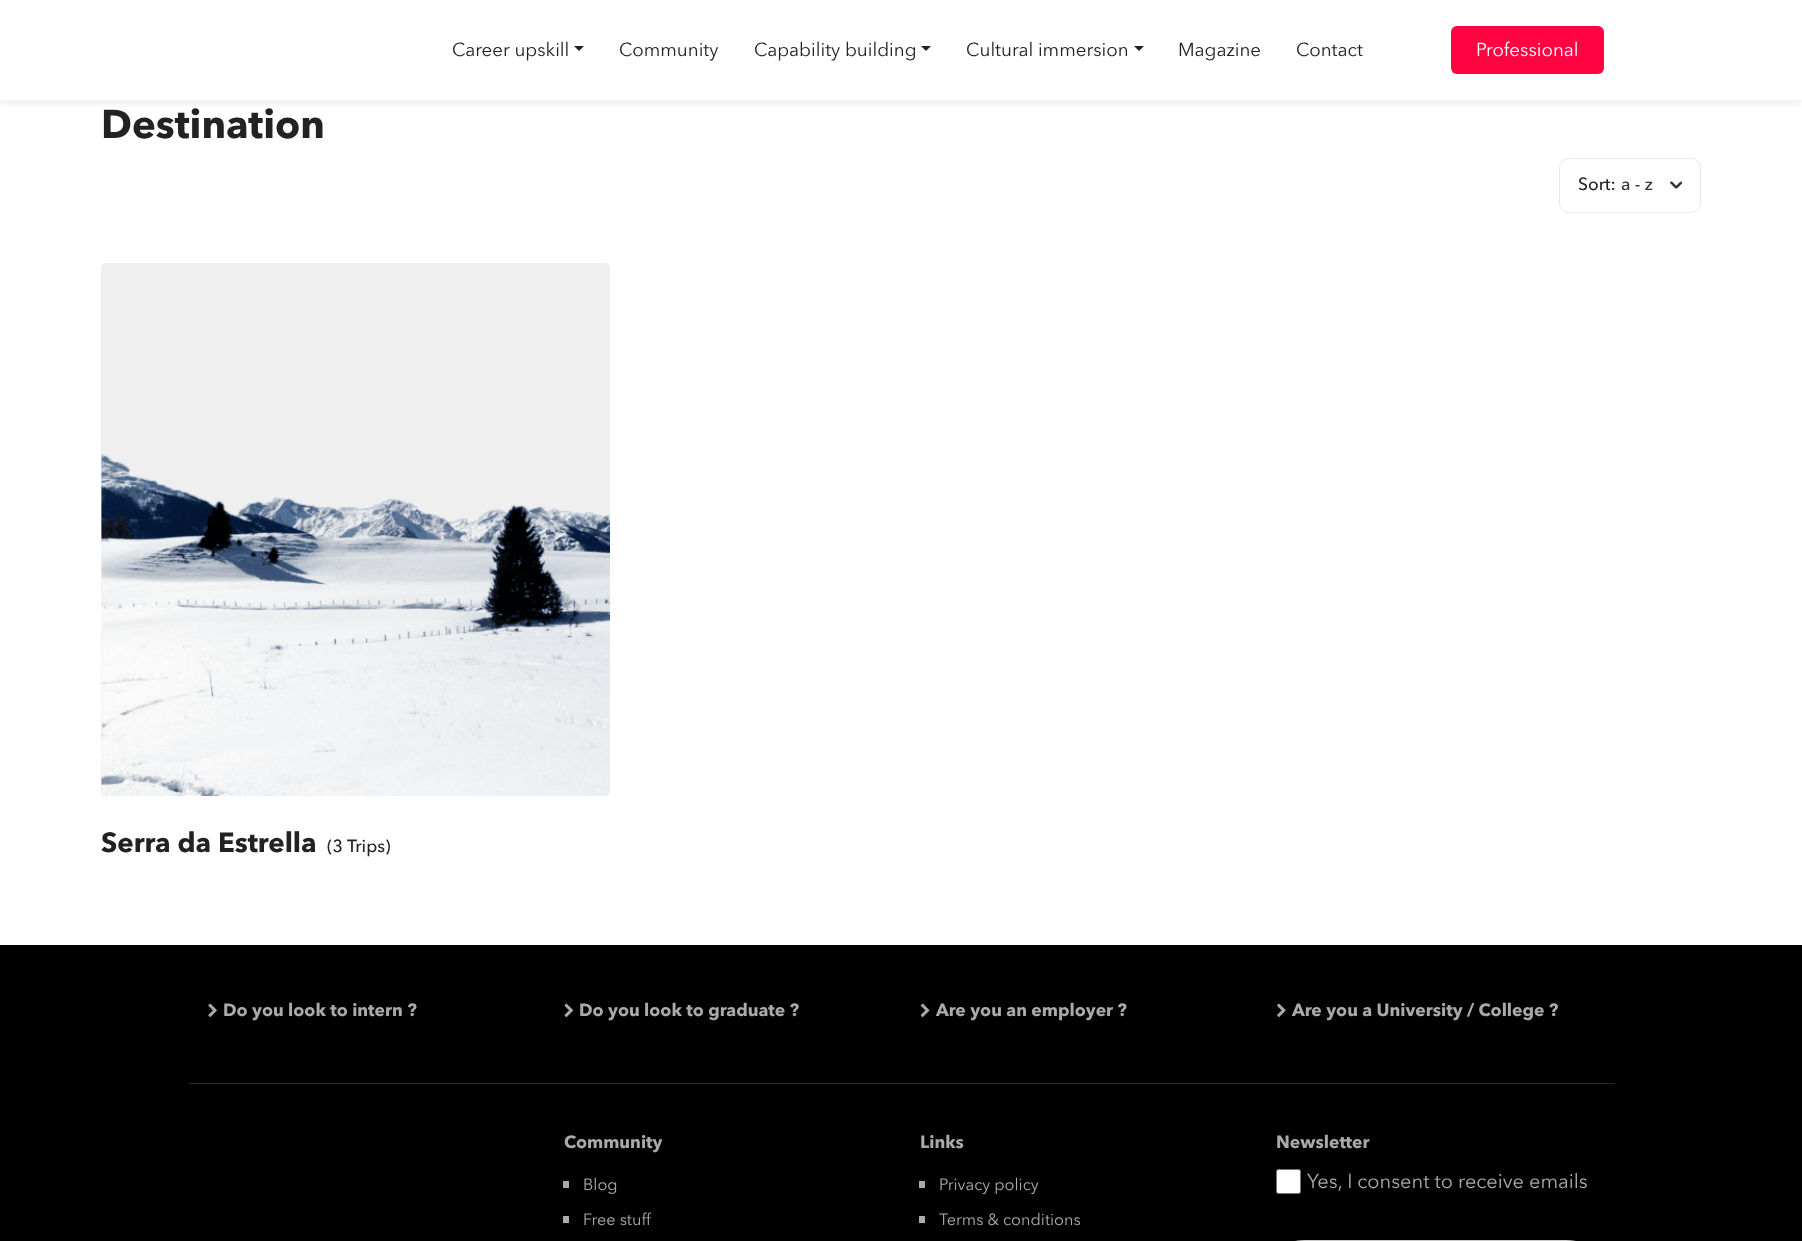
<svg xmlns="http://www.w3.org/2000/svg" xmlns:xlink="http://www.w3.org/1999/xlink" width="1802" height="1241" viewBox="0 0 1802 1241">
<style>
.cls-1{font:18.75px Avenir Next;fill:#222222}
.cls-2{font:18.75px Avenir Next;fill:#ffffff}
.cls-3{font:bold 40px Avenir Next;fill:#222222}
.cls-4{font:500 17.5px Avenir Next;fill:#222222}
.cls-5{font:500 17.5px Avenir Next;fill:#333333}
.cls-6{font:bold 27.5px Avenir Next;fill:#222222}
.cls-7{font:bold 17.5px Avenir Next;fill:#aaaaaa}
.cls-8{font:16.25px Avenir Next;fill:#aaaaaa}
.cls-9{font:20px Avenir Next;fill:#aaaaaa}
</style>
<defs>
<clipPath id="clip1"><rect x="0" y="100" width="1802" height="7"/></clipPath>
</defs>
<rect width="100%" height="100%" fill="#ffffff"/>
<g clip-path="url(#clip1)">
<rect fill="#000000" fill-opacity="0.08" filter="blur(6px)" x="0" y="3" width="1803" height="100"/>
</g>
<path fill="#222222" d="M574 46H584L579 51Z"/>
<path fill="#222222" d="M921 46H931L926 51Z"/>
<path fill="#222222" d="M1134 46H1144L1139 51Z"/>
<rect fill="#ff0440" x="1451" y="26" width="153" height="48" rx="6"/>
<rect fill="none" stroke="#e7e8e9" x="1559.5" y="158.5" width="141" height="54" rx="9.5"/>
<image xlink:href="image0.png" x="1670" y="181" width="13" height="8"/>
<rect fill="#efefef" x="101" y="263" width="509" height="533" rx="5"/>
<image xlink:href="image1.png" x="101" y="453" width="509" height="344"/>
<rect fill="#000000" x="0" y="945" width="1802" height="296"/>
<rect fill="#292929" x="189" y="1083" width="1425" height="1"/>
<image xlink:href="image2.png" x="208" y="1003" width="9" height="14"/>
<image xlink:href="image3.png" x="564" y="1003" width="10" height="14"/>
<image xlink:href="image4.png" x="920" y="1003" width="10" height="14"/>
<image xlink:href="image5.png" x="1277" y="1003" width="9" height="14"/>
<rect fill="#aaaaaa" x="563" y="1181" width="6" height="7"/>
<rect fill="#aaaaaa" x="563" y="1216" width="6" height="7"/>
<rect fill="#aaaaaa" x="919" y="1181" width="6" height="7"/>
<rect fill="#aaaaaa" x="919" y="1216" width="6" height="7"/>
<rect fill="#ffffff" stroke="#767676" x="1276.5" y="1169.5" width="24" height="24" rx="2"/>
<rect fill="none" stroke="#cccccc" x="1276.5" y="1240.5" width="318" height="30" rx="28.5"/>
<text class="cls-1" x="452" y="56">Career upskill</text>
<text class="cls-1" x="619" y="56">Community</text>
<text class="cls-1" x="754" y="56">Capability building</text>
<text class="cls-1" x="966" y="56">Cultural immersion</text>
<text class="cls-1" x="1178" y="56">Magazine</text>
<text class="cls-1" x="1296" y="56">Contact</text>
<text class="cls-2" x="1476" y="56">Professional</text>
<text class="cls-3" x="101" y="138">Destination</text>
<text class="cls-4" x="1578" y="190">Sort:</text>
<text class="cls-5" x="1621" y="190">a - z</text>
<text class="cls-6" x="101" y="852">Serra da Estrella</text>
<text class="cls-4" x="327" y="852">(3 Trips)</text>
<text class="cls-7" x="223" y="1016">Do you look to intern ?</text>
<text class="cls-7" x="579" y="1016">Do you look to graduate ?</text>
<text class="cls-7" x="936" y="1016">Are you an employer ?</text>
<text class="cls-7" x="1292" y="1016">Are you a University / College ?</text>
<text class="cls-7" x="564" y="1148">Community</text>
<text class="cls-8" x="583" y="1190">Blog</text>
<text class="cls-8" x="583" y="1225">Free stuff</text>
<text class="cls-7" x="920" y="1148">Links</text>
<text class="cls-8" x="939" y="1190">Privacy policy</text>
<text class="cls-8" x="939" y="1225">Terms &amp; conditions</text>
<text class="cls-7" x="1276" y="1148">Newsletter</text>
<text class="cls-9" x="1307" y="1188">Yes, I consent to receive emails</text>
</svg>
